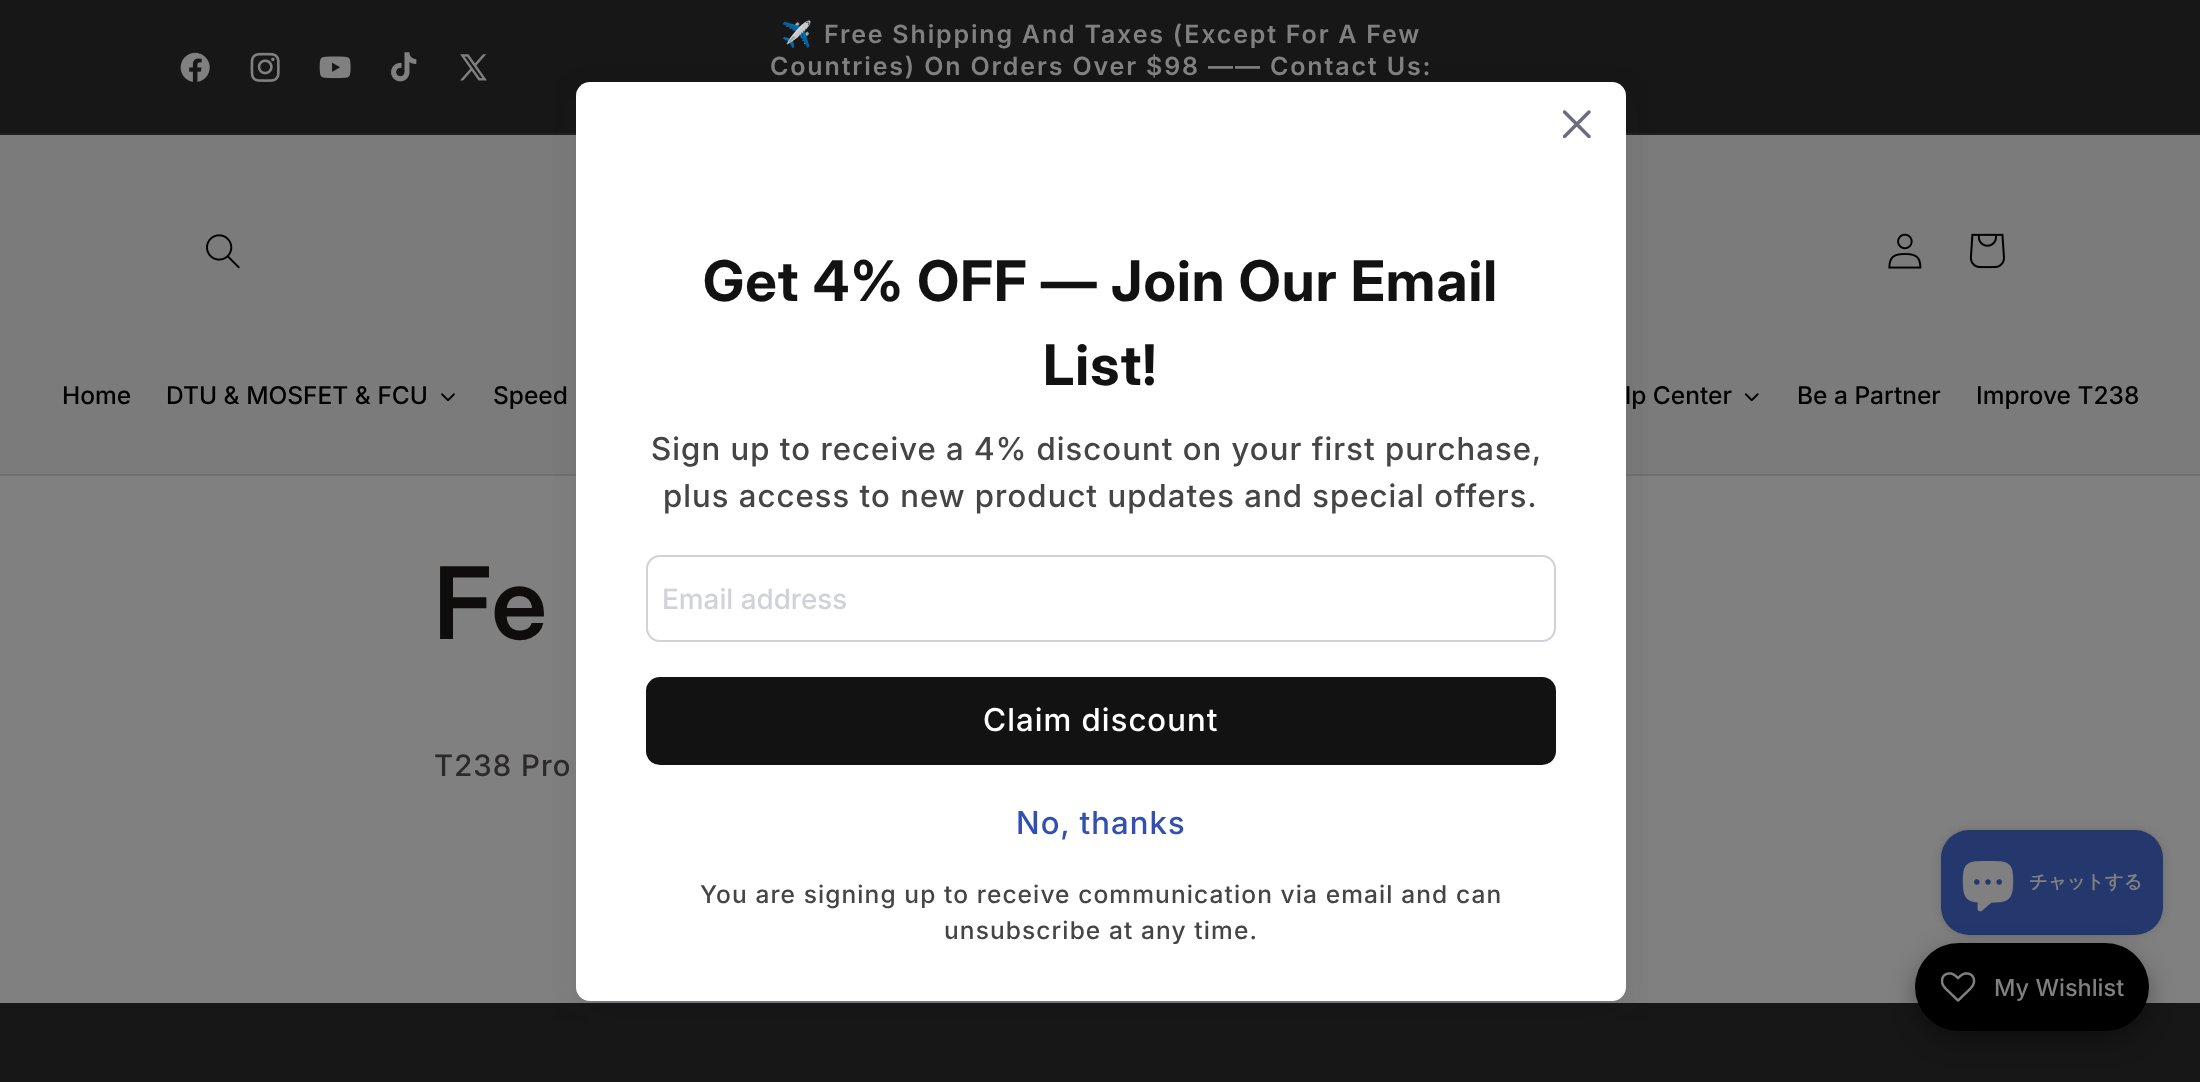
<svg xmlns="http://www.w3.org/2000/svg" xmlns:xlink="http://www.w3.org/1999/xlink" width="2200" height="1082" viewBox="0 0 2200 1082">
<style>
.cls-1{font:bold 25px Noto Color Emoji;letter-spacing:1.85px;fill:#808080}
.cls-2{font:600 25px 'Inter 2';letter-spacing:1.85px;fill:#808080}
.cls-3{font:bold 56px Inter;letter-spacing:1.1px;fill:#121212}
.cls-4{font:500 31.5px 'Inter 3';letter-spacing:1.1px;fill:#454545}
.cls-5{font:500 28px 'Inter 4';fill:#d1d1db}
.cls-6{font:500 31.5px 'Inter 3';letter-spacing:1.1px;fill:#ffffff}
.cls-7{font:500 31.5px 'Inter 3';letter-spacing:1.1px;fill:#334fb4}
.cls-8{font:500 24.5px 'Inter 2';letter-spacing:1.1px;fill:#454545}
.cls-9{font:500 24.5px 'Inter 2';fill:#000000}
.cls-10{font:600 100px Inter;letter-spacing:1px;fill:#0f0c0c}
.cls-11{font:500 29.5px Inter;letter-spacing:1.1px;fill:#2b2929}
.cls-12{font:bold 18.5px WenQuanYi Zen Hei;fill:#808080}
.cls-13{font:500 23.5px 'Inter 2';fill:#808080}
</style>
<defs>
<clipPath id="clip1"><rect x="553" y="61" width="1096" height="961"/></clipPath>
</defs>
<rect width="100%" height="100%" fill="#808080"/>
<rect fill="#171717" x="0" y="0" width="2200" height="133"/>
<rect fill="#202020" x="0" y="133" width="2200" height="2"/>
<image xlink:href="image0.png" x="180" y="52" width="30" height="30"/>
<image xlink:href="image1.png" x="250" y="52" width="30" height="30"/>
<image xlink:href="image2.png" x="319" y="56" width="32" height="23"/>
<image xlink:href="image3.png" x="391" y="52" width="26" height="30"/>
<image xlink:href="image4.png" x="460" y="54" width="27" height="27"/>
<rect fill="#7b7b7b" x="0" y="135" width="2200" height="339"/>
<rect fill="#717171" x="0" y="474" width="2200" height="2"/>
<rect fill="#171717" x="0" y="1003" width="2200" height="79"/>
<g clip-path="url(#clip1)">
<rect fill="#121127" fill-opacity="0.1" filter="blur(17.5px)" x="576" y="96" width="1050" height="919" rx="14"/>
</g>
<rect fill="#ffffff" x="576" y="82" width="1050" height="919" rx="14"/>
<image xlink:href="image5.png" x="1563" y="110" width="28" height="28"/>
<rect fill="none" stroke="#d1d1db" stroke-width="2" x="647" y="556" width="908" height="85" rx="13"/>
<rect fill="#121212" x="646" y="677" width="910" height="88" rx="14"/>
<image xlink:href="image6.png" x="206" y="234" width="34" height="35"/>
<image xlink:href="image7.png" x="1888" y="233" width="34" height="36"/>
<image xlink:href="image8.png" x="1969" y="233" width="36" height="36"/>
<image xlink:href="image9.png" x="441" y="393" width="14" height="9"/>
<image xlink:href="image10.png" x="1744" y="393" width="15" height="9"/>
<rect fill="#000000" fill-opacity="0.15" filter="blur(4.5px)" x="1941" y="830" width="222" height="105" rx="28"/>
<rect fill="#24386e" x="1941" y="830" width="222" height="105" rx="28"/>
<image xlink:href="image11.png" x="1962" y="861" width="52" height="51"/>
<rect fill="#000000" fill-opacity="0.35" filter="blur(13px)" x="1915" y="952" width="234" height="88" rx="44"/>
<rect fill="#000000" x="1915" y="943" width="234" height="88" rx="44"/>
<image xlink:href="image12.png" x="1941" y="972" width="35" height="30"/>
<text class="cls-1" x="781" y="43">✈️</text>
<text class="cls-2" x="824" y="43" word-spacing="-0.25">Free Shipping And Taxes (Except For A Few</text>
<text class="cls-2" x="770" y="75">Countries) On Orders Over $98 —— Contact Us:</text>
<text class="cls-3" x="703" y="301">Get 4% OFF — Join Our Email</text>
<text class="cls-3" x="1043" y="385">List!</text>
<text class="cls-4" x="651" y="460">Sign up to receive a 4% discount on your first purchase,</text>
<text class="cls-4" x="663" y="507">plus access to new product updates and special offers.</text>
<text class="cls-5" x="662" y="609">Email address</text>
<text class="cls-6" x="983" y="731">Claim discount</text>
<text class="cls-7" x="1016" y="834">No, thanks</text>
<text class="cls-8" x="700" y="903">You are signing up to receive communication via email and can</text>
<text class="cls-8" x="944" y="939">unsubscribe at any time.</text>
<text class="cls-9" x="62" y="404">Home</text>
<text class="cls-9" x="166" y="404">DTU &amp; MOSFET &amp; FCU</text>
<text class="cls-9" x="493" y="404">Speed</text>
<text class="cls-9" x="1625" y="404">lp Center</text>
<text class="cls-9" x="1797" y="404">Be a Partner</text>
<text class="cls-9" x="1976" y="404">Improve T238</text>
<text class="cls-10" x="434" y="639">Fe</text>
<text class="cls-11" x="434" y="776">T238 Pro</text>
<text class="cls-12" x="2029" y="888">チャットする</text>
<text class="cls-13" x="1994" y="996">My Wishlist</text>
</svg>
